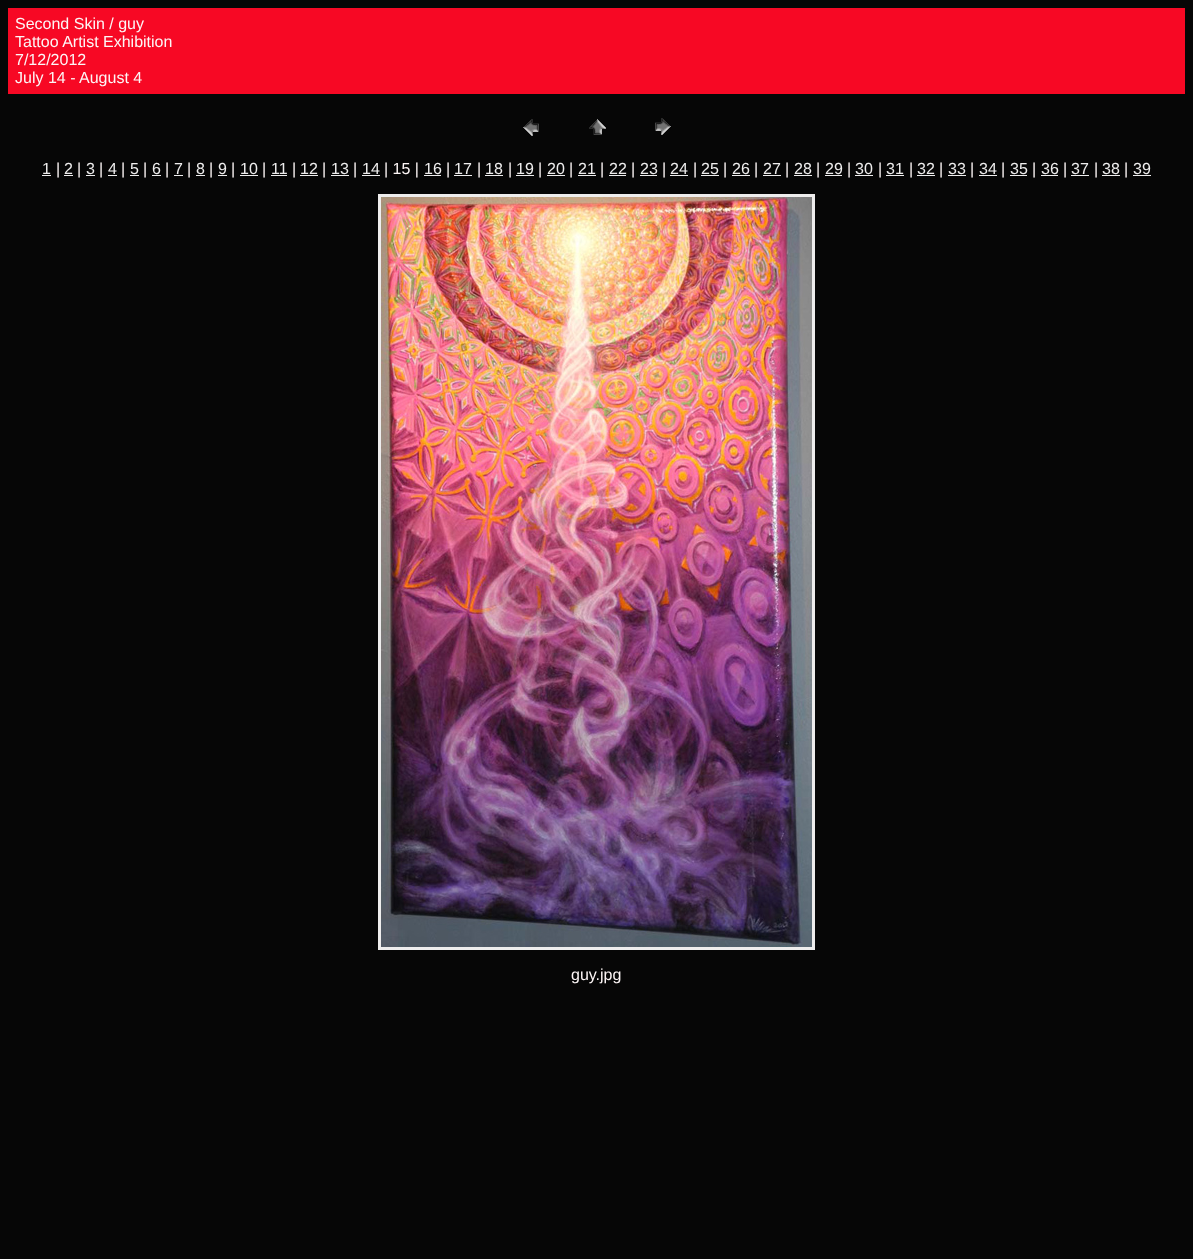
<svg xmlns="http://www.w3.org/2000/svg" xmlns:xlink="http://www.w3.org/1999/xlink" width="1193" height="1259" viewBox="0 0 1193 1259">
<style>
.cls-1{font:16px Liberation Sans;fill:#fdf6f6}
.cls-2{font:16px Liberation Sans;fill:#eeeded}
</style>
<rect width="100%" height="100%" fill="#060606"/>
<rect fill="#f70824" x="8" y="8" width="1177" height="86"/>
<image xlink:href="image0.png" x="523" y="119" width="16" height="17"/>
<image xlink:href="image1.png" x="589" y="119" width="17" height="16"/>
<image xlink:href="image2.png" x="655" y="118" width="16" height="17"/>
<rect fill="#eeeded" x="42" y="175" width="9" height="1"/>
<rect fill="#eeeded" x="64" y="175" width="9" height="1"/>
<rect fill="#eeeded" x="86" y="175" width="9" height="1"/>
<rect fill="#eeeded" x="108" y="175" width="9" height="1"/>
<rect fill="#eeeded" x="130" y="175" width="9" height="1"/>
<rect fill="#eeeded" x="152" y="175" width="9" height="1"/>
<rect fill="#eeeded" x="174" y="175" width="9" height="1"/>
<rect fill="#eeeded" x="196" y="175" width="9" height="1"/>
<rect fill="#eeeded" x="218" y="175" width="9" height="1"/>
<rect fill="#eeeded" x="240" y="175" width="18" height="1"/>
<rect fill="#eeeded" x="271" y="175" width="16" height="1"/>
<rect fill="#eeeded" x="300" y="175" width="18" height="1"/>
<rect fill="#eeeded" x="331" y="175" width="18" height="1"/>
<rect fill="#eeeded" x="362" y="175" width="18" height="1"/>
<rect fill="#eeeded" x="424" y="175" width="17" height="1"/>
<rect fill="#eeeded" x="454" y="175" width="18" height="1"/>
<rect fill="#eeeded" x="485" y="175" width="18" height="1"/>
<rect fill="#eeeded" x="516" y="175" width="18" height="1"/>
<rect fill="#eeeded" x="547" y="175" width="18" height="1"/>
<rect fill="#eeeded" x="578" y="175" width="18" height="1"/>
<rect fill="#eeeded" x="609" y="175" width="17" height="1"/>
<rect fill="#eeeded" x="640" y="175" width="17" height="1"/>
<rect fill="#eeeded" x="670" y="175" width="18" height="1"/>
<rect fill="#eeeded" x="701" y="175" width="18" height="1"/>
<rect fill="#eeeded" x="732" y="175" width="18" height="1"/>
<rect fill="#eeeded" x="763" y="175" width="18" height="1"/>
<rect fill="#eeeded" x="794" y="175" width="18" height="1"/>
<rect fill="#eeeded" x="825" y="175" width="17" height="1"/>
<rect fill="#eeeded" x="855" y="175" width="18" height="1"/>
<rect fill="#eeeded" x="886" y="175" width="18" height="1"/>
<rect fill="#eeeded" x="917" y="175" width="18" height="1"/>
<rect fill="#eeeded" x="948" y="175" width="18" height="1"/>
<rect fill="#eeeded" x="979" y="175" width="18" height="1"/>
<rect fill="#eeeded" x="1010" y="175" width="17" height="1"/>
<rect fill="#eeeded" x="1041" y="175" width="17" height="1"/>
<rect fill="#eeeded" x="1071" y="175" width="18" height="1"/>
<rect fill="#eeeded" x="1102" y="175" width="18" height="1"/>
<rect fill="#eeeded" x="1133" y="175" width="18" height="1"/>
<rect fill="none" stroke="#eeeded" stroke-width="3" x="379.5" y="195.5" width="434" height="753"/>
<image xlink:href="image3.png" x="381" y="197" width="431" height="750"/>
<text class="cls-1"><tspan x="15" y="29">Second Skin / guy</tspan><tspan x="15" y="47">Tattoo Artist Exhibition</tspan><tspan x="15" y="65">7/12/2012</tspan><tspan x="15" y="83">July 14 - August 4</tspan></text>
<text class="cls-2" x="42" y="174">1</text>
<text class="cls-1" x="56" y="174">|</text>
<text class="cls-2" x="64" y="174">2</text>
<text class="cls-1" x="77" y="174">|</text>
<text class="cls-2" x="86" y="174">3</text>
<text class="cls-1" x="99" y="174">|</text>
<text class="cls-2" x="108" y="174">4</text>
<text class="cls-1" x="121" y="174">|</text>
<text class="cls-2" x="130" y="174">5</text>
<text class="cls-1" x="143" y="174">|</text>
<text class="cls-2" x="152" y="174">6</text>
<text class="cls-1" x="165" y="174">|</text>
<text class="cls-2" x="174" y="174">7</text>
<text class="cls-1" x="187" y="174">|</text>
<text class="cls-2" x="196" y="174">8</text>
<text class="cls-1" x="209" y="174">|</text>
<text class="cls-2" x="218" y="174">9</text>
<text class="cls-1" x="231" y="174">|</text>
<text class="cls-2" x="240" y="174">10</text>
<text class="cls-1" x="262" y="174">|</text>
<text class="cls-2" x="271" y="174">11</text>
<text class="cls-1" x="292" y="174">|</text>
<text class="cls-2" x="300" y="174">12</text>
<text class="cls-1" x="322" y="174">|</text>
<text class="cls-2" x="331" y="174">13</text>
<text class="cls-1" x="353" y="174">|</text>
<text class="cls-2" x="362" y="174">14</text>
<text class="cls-1" x="384" y="174">| 15 |</text>
<text class="cls-2" x="424" y="174">16</text>
<text class="cls-1" x="446" y="174">|</text>
<text class="cls-2" x="454" y="174">17</text>
<text class="cls-1" x="477" y="174">|</text>
<text class="cls-2" x="485" y="174">18</text>
<text class="cls-1" x="508" y="174">|</text>
<text class="cls-2" x="516" y="174">19</text>
<text class="cls-1" x="538" y="174">|</text>
<text class="cls-2" x="547" y="174">20</text>
<text class="cls-1" x="569" y="174">|</text>
<text class="cls-2" x="578" y="174">21</text>
<text class="cls-1" x="600" y="174">|</text>
<text class="cls-2" x="609" y="174">22</text>
<text class="cls-1" x="631" y="174">|</text>
<text class="cls-2" x="640" y="174">23</text>
<text class="cls-1" x="662" y="174">|</text>
<text class="cls-2" x="670" y="174">24</text>
<text class="cls-1" x="693" y="174">|</text>
<text class="cls-2" x="701" y="174">25</text>
<text class="cls-1" x="723" y="174">|</text>
<text class="cls-2" x="732" y="174">26</text>
<text class="cls-1" x="754" y="174">|</text>
<text class="cls-2" x="763" y="174">27</text>
<text class="cls-1" x="785" y="174">|</text>
<text class="cls-2" x="794" y="174">28</text>
<text class="cls-1" x="816" y="174">|</text>
<text class="cls-2" x="825" y="174">29</text>
<text class="cls-1" x="847" y="174">|</text>
<text class="cls-2" x="855" y="174">30</text>
<text class="cls-1" x="878" y="174">|</text>
<text class="cls-2" x="886" y="174">31</text>
<text class="cls-1" x="909" y="174">|</text>
<text class="cls-2" x="917" y="174">32</text>
<text class="cls-1" x="939" y="174">|</text>
<text class="cls-2" x="948" y="174">33</text>
<text class="cls-1" x="970" y="174">|</text>
<text class="cls-2" x="979" y="174">34</text>
<text class="cls-1" x="1001" y="174">|</text>
<text class="cls-2" x="1010" y="174">35</text>
<text class="cls-1" x="1032" y="174">|</text>
<text class="cls-2" x="1041" y="174">36</text>
<text class="cls-1" x="1063" y="174">|</text>
<text class="cls-2" x="1071" y="174">37</text>
<text class="cls-1" x="1094" y="174">|</text>
<text class="cls-2" x="1102" y="174">38</text>
<text class="cls-1" x="1124" y="174">|</text>
<text class="cls-2" x="1133" y="174">39</text>
<text class="cls-1" x="571" y="980">guy.jpg</text>
</svg>
